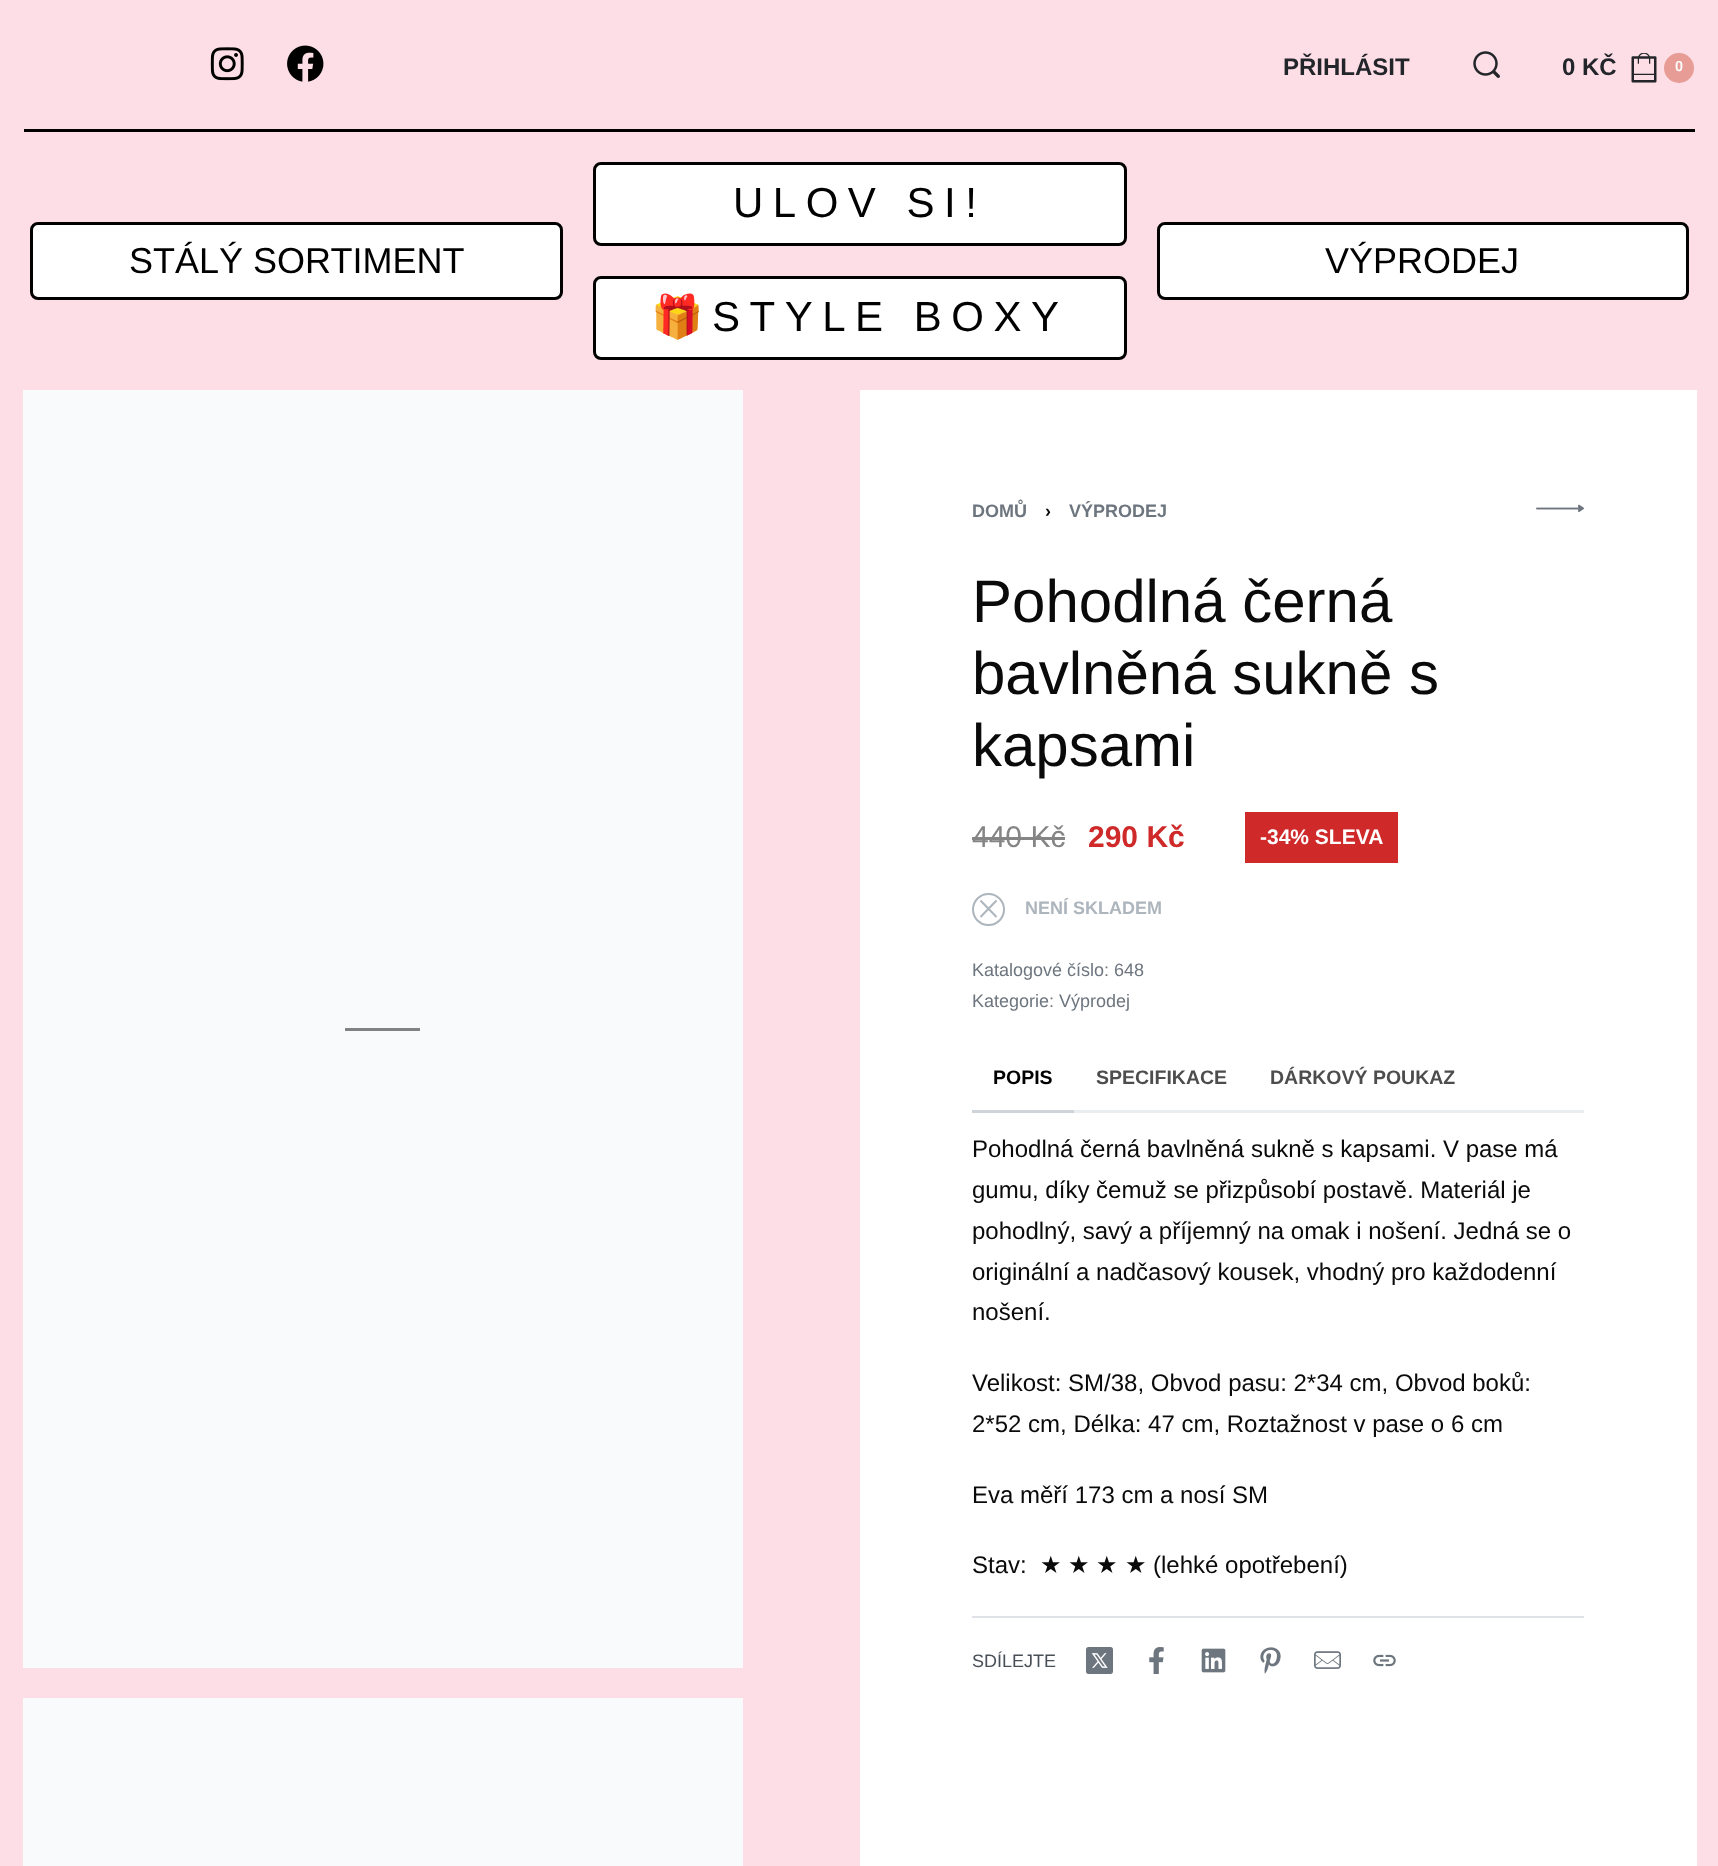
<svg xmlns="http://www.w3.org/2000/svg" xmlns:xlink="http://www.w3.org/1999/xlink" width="1718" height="1866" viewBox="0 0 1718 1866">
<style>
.cls-1{font:bold 24px Liberation Sans;fill:#22262a}
.cls-2{font:600 14px Roboto;fill:#ffffff}
.cls-3{font:36px Liberation Sans;fill:#000000}
.cls-4{font:42px Liberation Sans;letter-spacing:9.5px;fill:#000000}
.cls-5{font:42px Noto Color Emoji;letter-spacing:9.5px;fill:#000000}
.cls-6{font:bold 18px Liberation Sans;fill:#6d757e}
.cls-7{font:bold 18px Liberation Sans;fill:#0a0a0a}
.cls-8{font:60px Liberation Sans;fill:#0a0a0a}
.cls-9{font:30px Liberation Sans;fill:#858585}
.cls-10{font:bold 30px Liberation Sans;fill:#cf2929}
.cls-11{font:bold 21px Liberation Sans;fill:#ffffff}
.cls-12{font:bold 18px Liberation Sans;fill:#adb5bd}
.cls-13{font:18px Liberation Sans;fill:#6d757e}
.cls-14{font:bold 19.5px Liberation Sans;fill:#000000}
.cls-15{font:bold 19.5px Liberation Sans;fill:#4d4d4d}
.cls-16{font:24px Liberation Sans;fill:#0a0a0a}
.cls-17{font:24px DejaVu Sans;fill:#0a0a0a}
.cls-18{font:18px Liberation Sans;fill:#484f56}
</style>
<rect width="100%" height="100%" fill="#fedee6"/>
<rect fill="#000000" x="24" y="129" width="1671" height="3"/>
<image xlink:href="image0.png" x="210" y="47" width="34" height="34"/>
<image xlink:href="image1.png" x="287" y="45" width="37" height="37"/>
<image xlink:href="image2.png" x="1473" y="51" width="27" height="27"/>
<image xlink:href="image3.png" x="1631" y="53" width="26" height="30"/>
<circle fill="#e79c96" cx="1679" cy="68" r="15"/>
<rect fill="#ffffff" stroke="#000000" stroke-width="3" x="31.5" y="223.5" width="530" height="75" rx="6.5"/>
<rect fill="#ffffff" stroke="#000000" stroke-width="3" x="594.5" y="163.5" width="531" height="81" rx="6.5"/>
<rect fill="#ffffff" stroke="#000000" stroke-width="3" x="594.5" y="277.5" width="531" height="81" rx="6.5"/>
<rect fill="#ffffff" stroke="#000000" stroke-width="3" x="1158.5" y="223.5" width="529" height="75" rx="6.5"/>
<rect fill="#f9fafb" x="23" y="390" width="720" height="1278"/>
<rect fill="#828283" x="345" y="1028" width="75" height="3"/>
<rect fill="#f9fafb" x="23" y="1698" width="720" height="168"/>
<rect fill="#ffffff" x="860" y="390" width="837" height="1476"/>
<image xlink:href="image4.png" x="1536" y="504" width="48" height="8"/>
<rect fill="#858585" x="972" y="837" width="93" height="3"/>
<rect fill="#cf2929" x="1245" y="812" width="153" height="51"/>
<circle fill="none" stroke="#adb5bd" stroke-width="2" cx="988.5" cy="909.5" r="15.5"/>
<path fill="none" stroke="#adb5bd" stroke-width="2" stroke-linecap="square" d="M980.5 900.5L996.5 917ZM980.5 917L996.5 900.5Z"/>
<rect fill="#eaedf0" x="1074" y="1110" width="510" height="3"/>
<rect fill="#ced4da" x="972" y="1110" width="102" height="3"/>
<rect fill="#dfe3e7" x="972" y="1616" width="612" height="2"/>
<image xlink:href="image5.png" x="1086" y="1647" width="27" height="27"/>
<image xlink:href="image6.png" x="1149" y="1647" width="15" height="27"/>
<image xlink:href="image7.png" x="1201" y="1648" width="25" height="25"/>
<image xlink:href="image8.png" x="1260" y="1647" width="21" height="27"/>
<image xlink:href="image9.png" x="1314" y="1651" width="27" height="18"/>
<image xlink:href="image10.png" x="1373" y="1654" width="23" height="13"/>
<text class="cls-1" x="1283" y="75">PŘIHLÁSIT</text>
<text class="cls-1" x="1562" y="75">0 KČ</text>
<text class="cls-2" x="1675" y="71">0</text>
<text class="cls-3" x="129" y="273">STÁLÝ SORTIMENT</text>
<text class="cls-4" x="733" y="217">ULOV SI!</text>
<text class="cls-5" x="651" y="331">🎁</text>
<text class="cls-4" x="712" y="331">STYLE BOXY</text>
<text class="cls-3" x="1325" y="273">VÝPRODEJ</text>
<text class="cls-6" x="972" y="517">DOMŮ</text>
<text class="cls-7" x="1045" y="517">›</text>
<text class="cls-6" x="1069" y="517">VÝPRODEJ</text>
<text class="cls-8"><tspan x="972" y="622">Pohodlná černá</tspan><tspan x="972" y="694">bavlněná sukně s</tspan><tspan x="972" y="766">kapsami</tspan></text>
<text class="cls-9" x="972" y="847">440 Kč</text>
<text class="cls-10" x="1088" y="847">290 Kč</text>
<text class="cls-11" x="1260" y="844">-34% SLEVA</text>
<text class="cls-12" x="1025" y="914">NENÍ SKLADEM</text>
<text class="cls-13"><tspan x="972" y="976">Katalogové číslo: 648</tspan><tspan x="972" y="1007">Kategorie: Výprodej</tspan></text>
<text class="cls-14" x="993" y="1084">POPIS</text>
<text class="cls-15" x="1096" y="1084">SPECIFIKACE</text>
<text class="cls-15" x="1270" y="1084">DÁRKOVÝ POUKAZ</text>
<text class="cls-16"><tspan x="972" y="1157">Pohodlná černá bavlněná sukně s kapsami. V pase má</tspan><tspan x="972" y="1198">gumu, díky čemuž se přizpůsobí postavě. Materiál je</tspan><tspan x="972" y="1239">pohodlný, savý a příjemný na omak i nošení. Jedná se o</tspan><tspan x="972" y="1280">originální a nadčasový kousek, vhodný pro každodenní</tspan><tspan x="972" y="1320">nošení.</tspan></text>
<text class="cls-16"><tspan x="972" y="1391">Velikost: SM/38, Obvod pasu: 2*34 cm, Obvod boků:</tspan><tspan x="972" y="1432">2*52 cm, Délka: 47 cm, Roztažnost v pase o 6 cm</tspan></text>
<text class="cls-16" x="972" y="1503">Eva měří 173 cm a nosí SM</text>
<text class="cls-16" x="972" y="1573">Stav:</text>
<text class="cls-17" x="1040" y="1573">★</text>
<text class="cls-17" x="1068" y="1573">★</text>
<text class="cls-17" x="1096" y="1573">★</text>
<text class="cls-17" x="1125" y="1573">★</text>
<text class="cls-16" x="1153" y="1573">(lehké opotřebení)</text>
<text class="cls-18" x="972" y="1667">SDÍLEJTE</text>
</svg>
